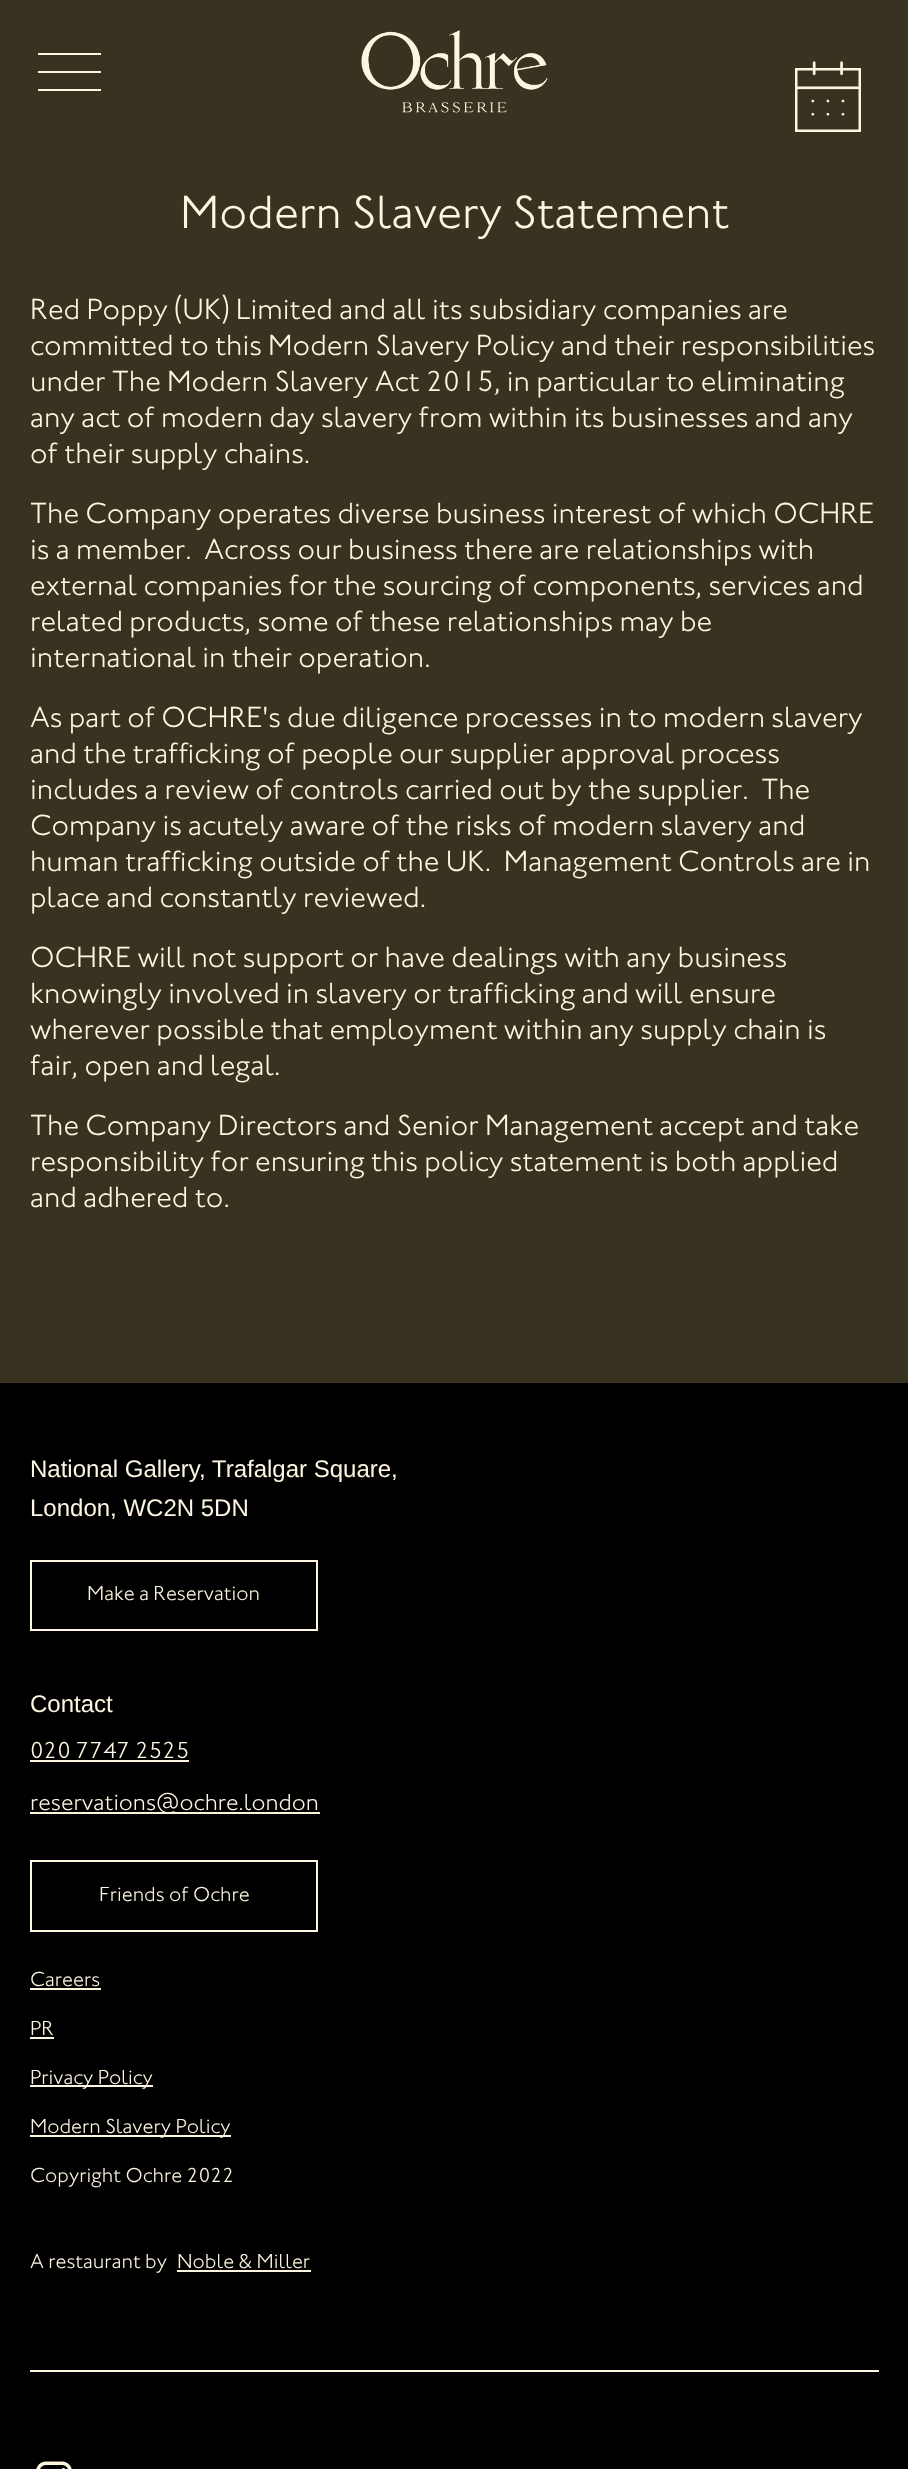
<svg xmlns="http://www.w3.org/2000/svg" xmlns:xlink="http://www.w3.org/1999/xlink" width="908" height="2469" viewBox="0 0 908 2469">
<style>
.cls-1{font:300 48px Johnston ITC;fill:#fef6e1}
.cls-2{font:300 30px Johnston ITC;fill:#fef6e1}
.cls-3{font:24px Liberation Sans;fill:#fef6e1}
.cls-4{font:300 21px Johnston ITC;fill:#fef6e1}
.cls-5{font:300 24px Johnston ITC;fill:#fef6e1}
</style>
<rect width="100%" height="100%" fill="#383321"/>
<rect fill="#fef6e1" x="38" y="53" width="63" height="2"/>
<rect fill="#fef6e1" x="38" y="71" width="63" height="2"/>
<rect fill="#fef6e1" x="38" y="89" width="63" height="2"/>
<image xlink:href="image0.png" x="361" y="30" width="187" height="83"/>
<image xlink:href="image1.png" x="795" y="61" width="66" height="71"/>
<rect fill="#000000" x="0" y="1383" width="908" height="1086"/>
<rect fill="none" stroke="#fef6e1" stroke-width="2" x="31" y="1561" width="286" height="69"/>
<rect fill="#fef6e1" x="30" y="1760" width="159" height="2"/>
<rect fill="#fef6e1" x="30" y="1812" width="290" height="2"/>
<rect fill="none" stroke="#fef6e1" stroke-width="2" x="31" y="1861" width="286" height="70"/>
<rect fill="#fef6e1" x="30" y="1988" width="71" height="2"/>
<rect fill="#fef6e1" x="30" y="2037" width="24" height="2"/>
<rect fill="#fef6e1" x="30" y="2085" width="123" height="2"/>
<rect fill="#fef6e1" x="30" y="2135" width="201" height="2"/>
<rect fill="#fef6e1" x="177" y="2270" width="134" height="2"/>
<rect fill="#fef6e1" x="30" y="2370" width="849" height="2"/>
<image xlink:href="image2.png" x="36" y="2461" width="36" height="8"/>
<text class="cls-1" x="180" y="228">Modern Slavery Statement</text>
<text class="cls-2"><tspan x="30" y="319">Red Poppy (UK) Limited and all its subsidiary companies are</tspan><tspan x="30" y="355">committed to this Modern Slavery Policy and their responsibilities</tspan><tspan x="30" y="391">under The Modern Slavery Act 2015, in particular to eliminating</tspan><tspan x="30" y="427">any act of modern day slavery from within its businesses and any</tspan><tspan x="30" y="463">of their supply chains.</tspan></text>
<text class="cls-2" xml:space="preserve"><tspan x="30" y="523">The Company operates diverse business interest of which OCHRE</tspan><tspan x="30" y="559">is a member.  Across our business there are relationships with</tspan><tspan x="30" y="595">external companies for the sourcing of components, services and</tspan><tspan x="30" y="631">related products, some of these relationships may be</tspan><tspan x="30" y="667">international in their operation.</tspan></text>
<text class="cls-2" xml:space="preserve"><tspan x="30" y="727">As part of OCHRE's due diligence processes in to modern slavery</tspan><tspan x="30" y="763">and the trafficking of people our supplier approval process</tspan><tspan x="30" y="799">includes a review of controls carried out by the supplier.  The</tspan><tspan x="30" y="835">Company is acutely aware of the risks of modern slavery and</tspan><tspan x="30" y="871">human trafficking outside of the UK.  Management Controls are in</tspan><tspan x="30" y="907">place and constantly reviewed.</tspan></text>
<text class="cls-2"><tspan x="30" y="967">OCHRE will not support or have dealings with any business</tspan><tspan x="30" y="1003">knowingly involved in slavery or trafficking and will ensure</tspan><tspan x="30" y="1039">wherever possible that employment within any supply chain is</tspan><tspan x="30" y="1075">fair, open and legal.</tspan></text>
<text class="cls-2"><tspan x="30" y="1135">The Company Directors and Senior Management accept and take</tspan><tspan x="30" y="1171">responsibility for ensuring this policy statement is both applied</tspan><tspan x="30" y="1207">and adhered to.</tspan></text>
<text class="cls-3"><tspan x="30" y="1477">National Gallery, Trafalgar Square,</tspan><tspan x="30" y="1516">London, WC2N 5DN</tspan></text>
<text class="cls-4" x="87" y="1600">Make a Reservation</text>
<text class="cls-3" x="30" y="1712">Contact</text>
<text class="cls-5" x="30" y="1758">020 7747 2525</text>
<text class="cls-5" x="30" y="1810">reservations@ochre.london</text>
<text class="cls-4" x="99" y="1901">Friends of Ochre</text>
<text class="cls-4" x="30" y="1986">Careers</text>
<text class="cls-4" x="30" y="2035">PR</text>
<text class="cls-4" x="30" y="2084">Privacy Policy</text>
<text class="cls-4" x="30" y="2133">Modern Slavery Policy</text>
<text class="cls-4" x="30" y="2182">Copyright Ochre 2022</text>
<text class="cls-4" x="30" y="2268">A restaurant by</text>
<text class="cls-4" x="177" y="2268">Noble &amp; Miller</text>
</svg>
